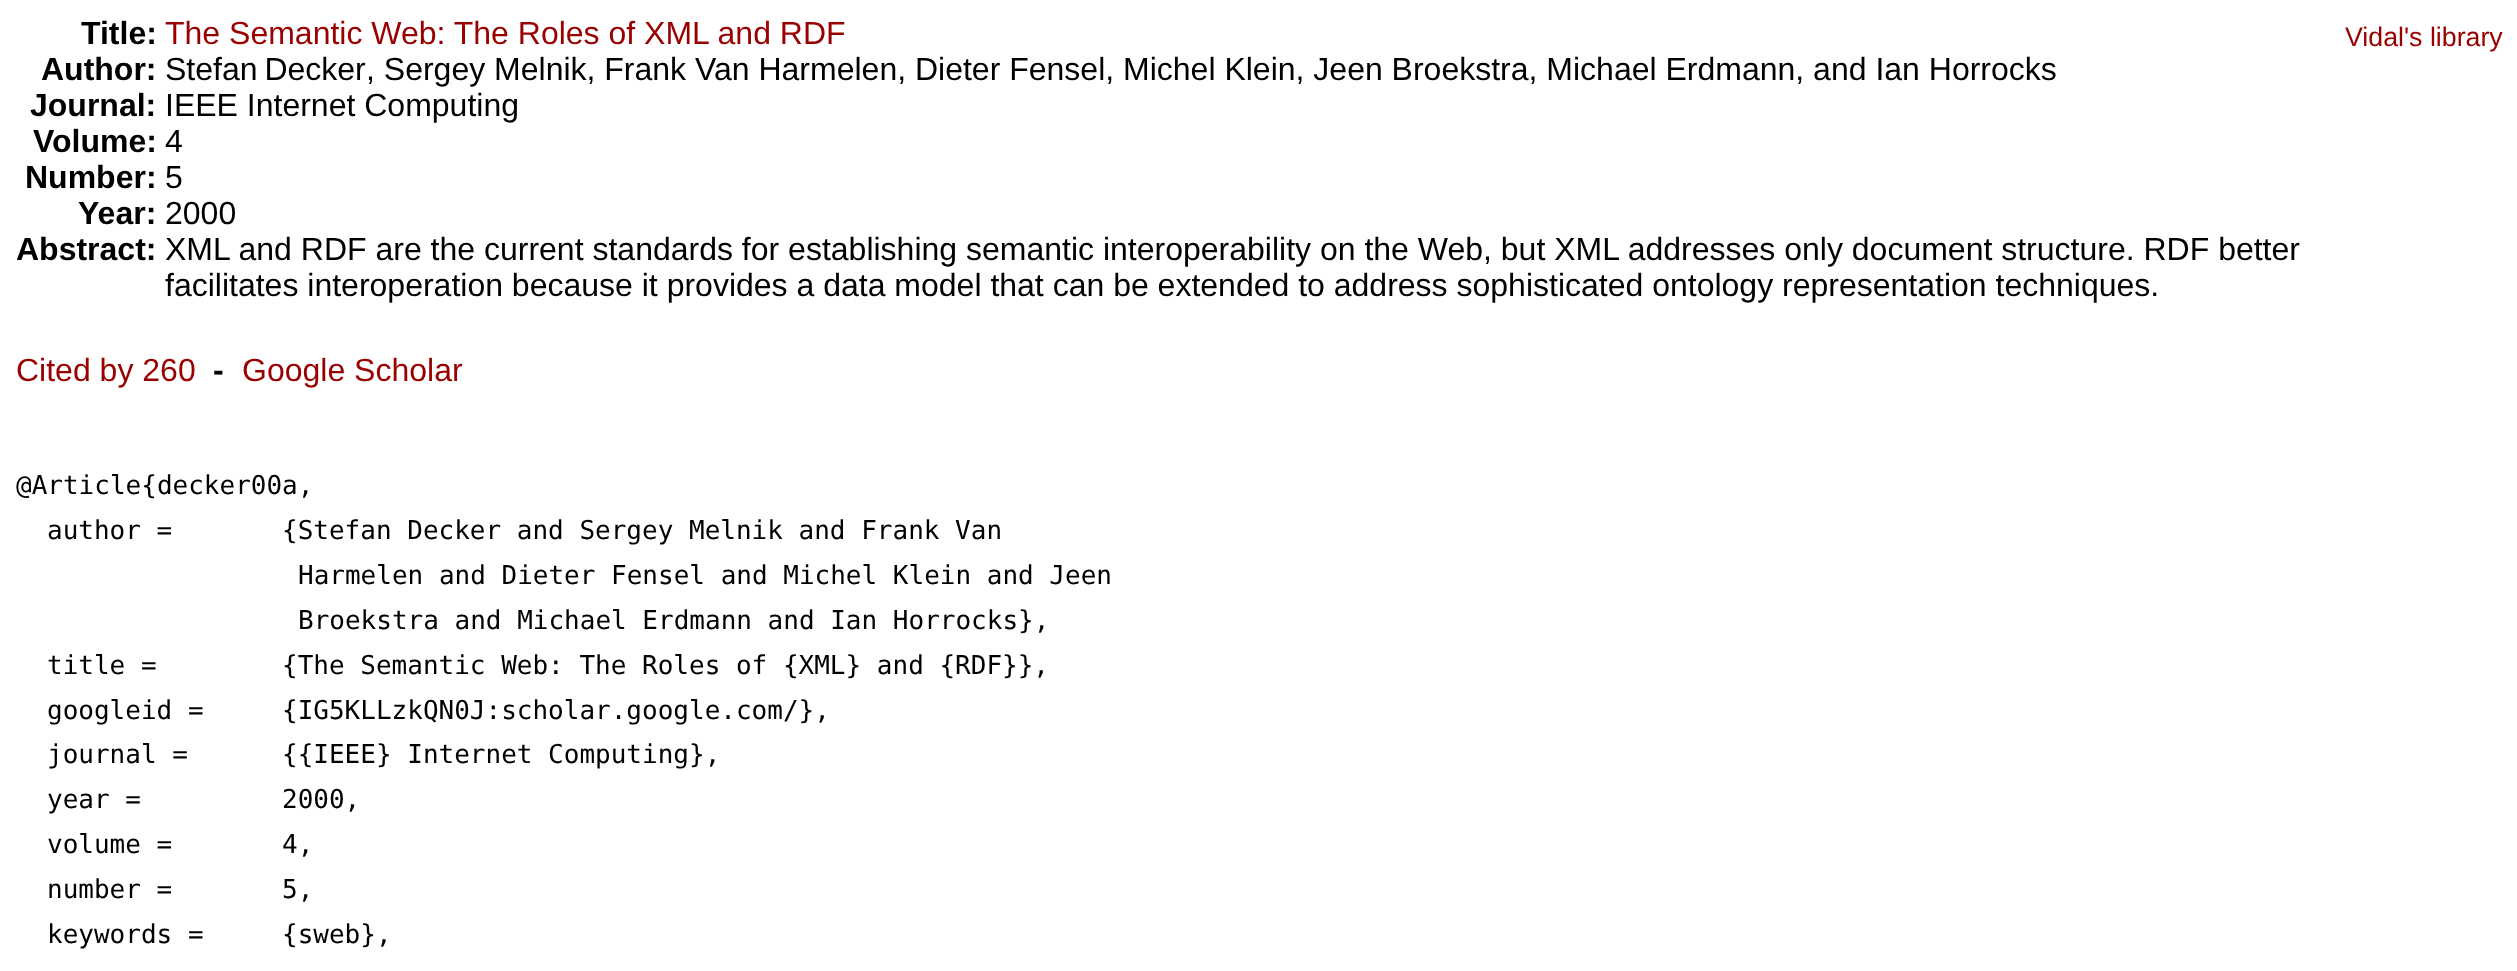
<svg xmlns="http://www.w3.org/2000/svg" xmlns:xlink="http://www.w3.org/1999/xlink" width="2517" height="971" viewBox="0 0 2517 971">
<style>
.cls-1{font:bold 32px Liberation Sans;fill:#000000}
.cls-2{font:32px Liberation Sans;fill:#990000}
.cls-3{font:32px Liberation Sans;fill:#000000}
.cls-4{font:26.75px Liberation Sans;fill:#990000}
.cls-5{font:26px DejaVu Sans Mono;fill:#000000}
</style>
<rect width="100%" height="100%" fill="#ffffff"/>
<text class="cls-1" x="81" y="44">Title:</text>
<text class="cls-2" x="165" y="44">The Semantic Web: The Roles of XML and RDF</text>
<text class="cls-1" x="41" y="80">Author:</text>
<text class="cls-3" x="165" y="80" word-spacing="-2">Stefan Decker</text>
<text class="cls-3" x="366" y="80">, Sergey Melnik, Frank Van Harmelen, Dieter Fensel, Michel Klein, Jeen Broekstra, Michael Erdmann, and Ian Horrocks</text>
<text class="cls-1" x="30" y="116">Journal:</text>
<text class="cls-3" x="165" y="116">IEEE Internet Computing</text>
<text class="cls-1" x="33" y="152">Volume:</text>
<text class="cls-3" x="165" y="152">4</text>
<text class="cls-1" x="25" y="188">Number:</text>
<text class="cls-3" x="165" y="188">5</text>
<text class="cls-1" x="78" y="224">Year:</text>
<text class="cls-3" x="165" y="224">2000</text>
<text class="cls-1" x="16" y="260">Abstract:</text>
<text class="cls-3"><tspan x="165" y="260">XML and RDF are the current standards for establishing semantic interoperability on the Web, but XML addresses only document structure. RDF better</tspan><tspan x="165" y="296">facilitates interoperation because it provides a data model that can be extended to address sophisticated ontology representation techniques.</tspan></text>
<text class="cls-4" x="2345" y="46">Vidal's library</text>
<text class="cls-2" x="16" y="381">Cited by 260</text>
<text class="cls-1" x="213" y="381">-</text>
<text class="cls-2" x="242" y="381">Google Scholar</text>
<text class="cls-5" x="16" y="494">@Article{decker00a,</text>
<text class="cls-5" x="47" y="539">author =</text>
<text class="cls-5" x="282" y="539">{Stefan Decker and Sergey Melnik and Frank Van</text>
<text class="cls-5"><tspan x="298" y="584">Harmelen and Dieter Fensel and Michel Klein and Jeen</tspan><tspan x="298" y="629">Broekstra and Michael Erdmann and Ian Horrocks},</tspan></text>
<text class="cls-5" x="47" y="674">title =</text>
<text class="cls-5" x="282" y="674">{The Semantic Web: The Roles of {XML} and {RDF}},</text>
<text class="cls-5" x="47" y="719">googleid =</text>
<text class="cls-5" x="282" y="719">{IG5KLLzkQN0J:scholar.google.com/},</text>
<text class="cls-5" x="47" y="763">journal =</text>
<text class="cls-5" x="282" y="763">{{IEEE} Internet Computing},</text>
<text class="cls-5" x="47" y="808">year =</text>
<text class="cls-5" x="282" y="808">2000,</text>
<text class="cls-5" x="47" y="853">volume =</text>
<text class="cls-5" x="282" y="853">4,</text>
<text class="cls-5" x="47" y="898">number =</text>
<text class="cls-5" x="282" y="898">5,</text>
<text class="cls-5" x="47" y="943">keywords =</text>
<text class="cls-5" x="282" y="943">{sweb},</text>
</svg>
